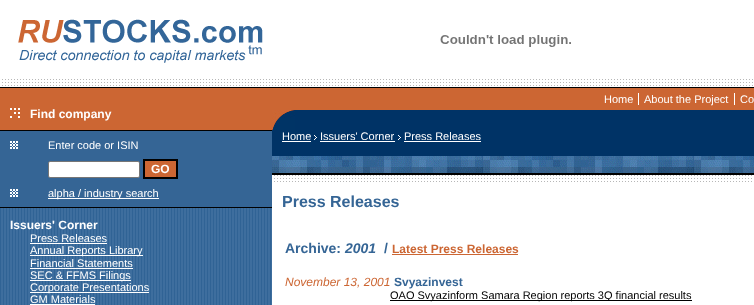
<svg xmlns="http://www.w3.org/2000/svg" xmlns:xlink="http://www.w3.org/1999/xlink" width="754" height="305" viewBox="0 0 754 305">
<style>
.cls-1{font:11px Liberation Sans;fill:#ffffff}
.cls-2{font:bold 12px Liberation Sans;fill:#ffffff}
.cls-3{font:bold 16px Liberation Sans;fill:#356595}
.cls-4{font:bold 14px Liberation Sans;fill:#356595}
.cls-5{font:italic bold 14px Liberation Sans;fill:#356595}
.cls-6{font:bold 12px Liberation Sans;fill:#cc6633}
.cls-7{font:italic 12px Liberation Sans;fill:#cc6633}
.cls-8{font:bold 12px Liberation Sans;fill:#356595}
.cls-9{font:11px Liberation Sans;fill:#000000}
</style>
<rect width="100%" height="100%" fill="#ffffff"/>
<image xlink:href="image0.png" x="18" y="19" width="245" height="44"/>
<image xlink:href="image1.png" x="440" y="35" width="131" height="12"/>
<image xlink:href="image2.png" x="2" y="79" width="751" height="7"/>
<rect fill="#000000" x="0" y="87" width="754" height="1"/>
<rect fill="#cc6633" x="272" y="88" width="482" height="22"/>
<rect fill="#ffffff" x="638" y="93" width="1" height="12"/>
<rect fill="#ffffff" x="734" y="93" width="1" height="12"/>
<rect fill="#cc6633" x="0" y="88" width="272" height="42"/>
<image xlink:href="image3.png" x="10" y="108" width="10" height="10"/>
<rect fill="#003366" x="295" y="110" width="459" height="20"/>
<image xlink:href="image4.png" x="272" y="110" width="23" height="20"/>
<rect fill="#356595" x="0" y="131" width="272" height="76"/>
<rect fill="#000000" x="0" y="130" width="272" height="1"/>
<image xlink:href="image5.png" x="10" y="141" width="8" height="8"/>
<rect fill="#ffffff" stroke="#767676" x="48.5" y="161.5" width="91" height="16" rx="1.5"/>
<rect fill="#cc6633" stroke="#000000" stroke-width="2" x="144" y="160" width="33" height="18"/>
<image xlink:href="image5.png" x="10" y="189" width="8" height="8"/>
<rect fill="#ffffff" x="48" y="198" width="111" height="1"/>
<rect fill="#000000" x="0" y="207" width="272" height="1"/>
<image xlink:href="image6.png" x="0" y="208" width="272" height="97"/>
<rect fill="#ffffff" x="30" y="243" width="77" height="1"/>
<rect fill="#ffffff" x="30" y="255" width="113" height="1"/>
<rect fill="#ffffff" x="30" y="268" width="103" height="1"/>
<rect fill="#ffffff" x="30" y="280" width="101" height="1"/>
<rect fill="#ffffff" x="30" y="292" width="119" height="1"/>
<rect fill="#ffffff" x="30" y="304" width="65" height="1"/>
<rect fill="#003366" x="272" y="130" width="482" height="26"/>
<rect fill="#ffffff" x="282" y="141" width="29" height="1"/>
<image xlink:href="image7.png" x="314" y="135" width="3" height="5"/>
<rect fill="#ffffff" x="320" y="141" width="75" height="1"/>
<image xlink:href="image7.png" x="398" y="135" width="3" height="5"/>
<rect fill="#ffffff" x="404" y="141" width="77" height="1"/>
<image xlink:href="image8.png" x="272" y="156" width="482" height="17"/>
<rect fill="#000000" x="272" y="173" width="482" height="2"/>
<image xlink:href="image9.png" x="274" y="175" width="478" height="7"/>
<rect fill="#cc6633" x="392" y="254" width="126" height="1"/>
<rect fill="#000000" x="390" y="300" width="302" height="1"/>
<text class="cls-1" x="604" y="103">Home</text>
<text class="cls-1" x="644" y="103">About the Project</text>
<text class="cls-1" x="740" y="103">Co</text>
<text class="cls-2" x="30" y="118">Find company</text>
<text class="cls-1" x="48" y="149">Enter code or ISIN</text>
<text class="cls-2" x="151" y="173">GO</text>
<text class="cls-1" x="48" y="197">alpha / industry search</text>
<text class="cls-2" x="10" y="229">Issuers' Corner</text>
<text class="cls-1"><tspan x="30" y="242">Press Releases</tspan><tspan x="30" y="254">Annual Reports Library</tspan><tspan x="30" y="267">Financial Statements</tspan><tspan x="30" y="279">SEC &amp; FFMS Filings</tspan><tspan x="30" y="291">Corporate Presentations</tspan><tspan x="30" y="303">GM Materials</tspan></text>
<text class="cls-1" x="282" y="140">Home</text>
<text class="cls-1" x="320" y="140">Issuers' Corner</text>
<text class="cls-1" x="404" y="140">Press Releases</text>
<text class="cls-3" x="282" y="207">Press Releases</text>
<text class="cls-4" x="285" y="253">Archive:</text>
<text class="cls-5" x="345" y="253">2001</text>
<text class="cls-4" x="384" y="253">/</text>
<text class="cls-6" x="392" y="253">Latest Press Releases</text>
<text class="cls-7" x="285" y="286">November 13, 2001</text>
<text class="cls-8" x="394" y="286">Svyazinvest</text>
<text class="cls-9" x="390" y="299">OAO Svyazinform Samara Region reports 3Q financial results</text>
</svg>
